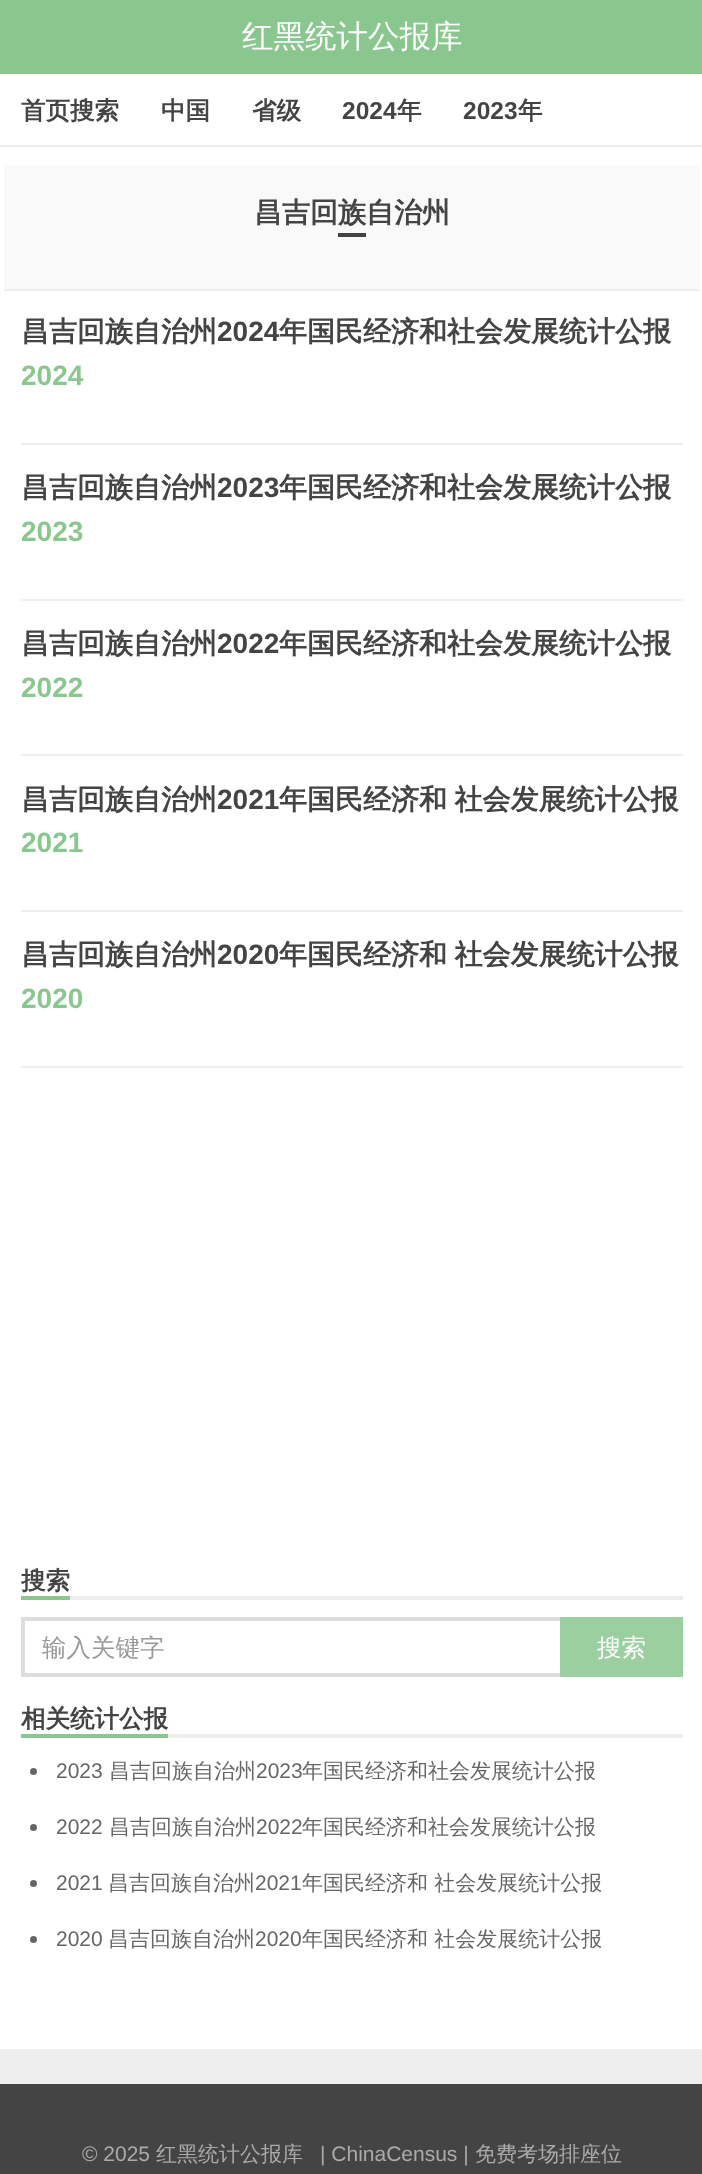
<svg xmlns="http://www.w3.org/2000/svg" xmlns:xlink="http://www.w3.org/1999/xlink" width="702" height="2174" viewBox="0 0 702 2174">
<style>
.cls-1{font:500 31.5px WenQuanYi Zen Hei;fill:#ffffff}
.cls-2{font:bold 24.5px WenQuanYi Zen Hei;fill:#444444}
.cls-3{font:bold 24.5px Liberation Sans;fill:#444444}
.cls-4{font:bold 28px WenQuanYi Zen Hei;fill:#444444}
.cls-5{font:bold 28px Liberation Sans;fill:#444444}
.cls-6{font:bold 28px Liberation Sans;fill:#8ac78f}
.cls-7{font:500 24.5px WenQuanYi Zen Hei;fill:#999999}
.cls-8{font:500 24.5px WenQuanYi Zen Hei;fill:#ffffff}
.cls-9{font:21px Liberation Sans;fill:#666666}
.cls-10{font:500 21px WenQuanYi Zen Hei;fill:#666666}
.cls-11{font:21px Liberation Sans;fill:#aaaaaa}
.cls-12{font:500 21px WenQuanYi Zen Hei;fill:#aaaaaa}
</style>
<rect width="100%" height="100%" fill="#ffffff"/>
<rect fill="#8ac78f" x="0" y="0" width="702" height="74"/>
<rect fill="#eeeeee" x="0" y="145" width="702" height="2"/>
<rect fill="#f9f9f9" x="4" y="165" width="696" height="124"/>
<rect fill="#eeeeee" x="4" y="289" width="696" height="2"/>
<rect fill="#444444" x="338" y="233" width="28" height="4"/>
<rect fill="#eeeeee" x="21" y="443" width="662" height="2"/>
<rect fill="#eeeeee" x="21" y="599" width="662" height="2"/>
<rect fill="#eeeeee" x="21" y="754" width="662" height="2"/>
<rect fill="#eeeeee" x="21" y="910" width="662" height="2"/>
<rect fill="#eeeeee" x="21" y="1066" width="662" height="2"/>
<rect fill="#eeeeee" x="70" y="1596" width="613" height="4"/>
<rect fill="#8ac78f" x="21" y="1596" width="49" height="4"/>
<rect fill="#dddddd" x="21" y="1617" width="539" height="4"/>
<rect fill="#dddddd" x="21" y="1673" width="539" height="4"/>
<rect fill="#dddddd" x="21" y="1617" width="4" height="60"/>
<rect fill="#9ccfa0" x="560" y="1617" width="123" height="60"/>
<rect fill="#eeeeee" x="168" y="1734" width="515" height="4"/>
<rect fill="#8ac78f" x="21" y="1734" width="147" height="4"/>
<circle fill="#666666" cx="33.5" cy="1771.5" r="3.5"/>
<circle fill="#666666" cx="33.5" cy="1827.5" r="3.5"/>
<circle fill="#666666" cx="33.5" cy="1883.5" r="3.5"/>
<circle fill="#666666" cx="33.5" cy="1939.5" r="3.5"/>
<rect fill="#444444" x="0" y="2084" width="702" height="90"/>
<rect fill="#eeeeee" x="0" y="2049" width="702" height="35"/>
<text class="cls-1" x="242" y="47">红黑统计公报库</text>
<text class="cls-2" x="21" y="119">首页搜索</text>
<text class="cls-2" x="161" y="119">中国</text>
<text class="cls-2" x="252" y="119">省级</text>
<text class="cls-3" x="342" y="119">2024</text>
<text class="cls-2" x="397" y="119">年</text>
<text class="cls-3" x="463" y="119">2023</text>
<text class="cls-2" x="518" y="119">年</text>
<text class="cls-4" x="254" y="222">昌吉回族自治州</text>
<text class="cls-4" x="21" y="341">昌吉回族自治州</text>
<text class="cls-5" x="217" y="341">2024</text>
<text class="cls-4" x="279" y="341">年国民经济和社会发展统计公报</text>
<text class="cls-6" x="21" y="385">2024</text>
<text class="cls-4" x="21" y="497">昌吉回族自治州</text>
<text class="cls-5" x="217" y="497">2023</text>
<text class="cls-4" x="279" y="497">年国民经济和社会发展统计公报</text>
<text class="cls-6" x="21" y="541">2023</text>
<text class="cls-4" x="21" y="653">昌吉回族自治州</text>
<text class="cls-5" x="217" y="653">2022</text>
<text class="cls-4" x="279" y="653">年国民经济和社会发展统计公报</text>
<text class="cls-6" x="21" y="697">2022</text>
<text class="cls-4" x="21" y="809">昌吉回族自治州</text>
<text class="cls-5" x="217" y="809">2021</text>
<text class="cls-4" x="279" y="809" word-spacing="-1">年国民经济和 社会发展统计公报</text>
<text class="cls-6" x="21" y="852">2021</text>
<text class="cls-4" x="21" y="964">昌吉回族自治州</text>
<text class="cls-5" x="217" y="964">2020</text>
<text class="cls-4" x="279" y="964" word-spacing="-1">年国民经济和 社会发展统计公报</text>
<text class="cls-6" x="21" y="1008">2020</text>
<text class="cls-2" x="21" y="1589">搜索</text>
<text class="cls-7" x="42" y="1656">输入关键字</text>
<text class="cls-8" x="597" y="1656">搜索</text>
<text class="cls-2" x="21" y="1727">相关统计公报</text>
<text class="cls-9" x="56" y="1778">2023</text>
<text class="cls-10" x="109" y="1778">昌吉回族自治州</text>
<text class="cls-9" x="256" y="1778">2023</text>
<text class="cls-10" x="302" y="1778">年国民经济和社会发展统计公报</text>
<text class="cls-9" x="56" y="1834">2022</text>
<text class="cls-10" x="109" y="1834">昌吉回族自治州</text>
<text class="cls-9" x="256" y="1834">2022</text>
<text class="cls-10" x="302" y="1834">年国民经济和社会发展统计公报</text>
<text class="cls-9" x="56" y="1890">2021</text>
<text class="cls-10" x="108" y="1890">昌吉回族自治州</text>
<text class="cls-9" x="255" y="1890">2021</text>
<text class="cls-10" x="302" y="1890">年国民经济和 社会发展统计公报</text>
<text class="cls-9" x="56" y="1946">2020</text>
<text class="cls-10" x="108" y="1946">昌吉回族自治州</text>
<text class="cls-9" x="255" y="1946">2020</text>
<text class="cls-10" x="302" y="1946">年国民经济和 社会发展统计公报</text>
<text class="cls-11" x="82" y="2161">© 2025</text>
<text class="cls-12" x="156" y="2161">红黑统计公报库</text>
<text class="cls-11" x="320" y="2161">| ChinaCensus |</text>
<text class="cls-12" x="475" y="2161">免费考场排座位</text>
</svg>
